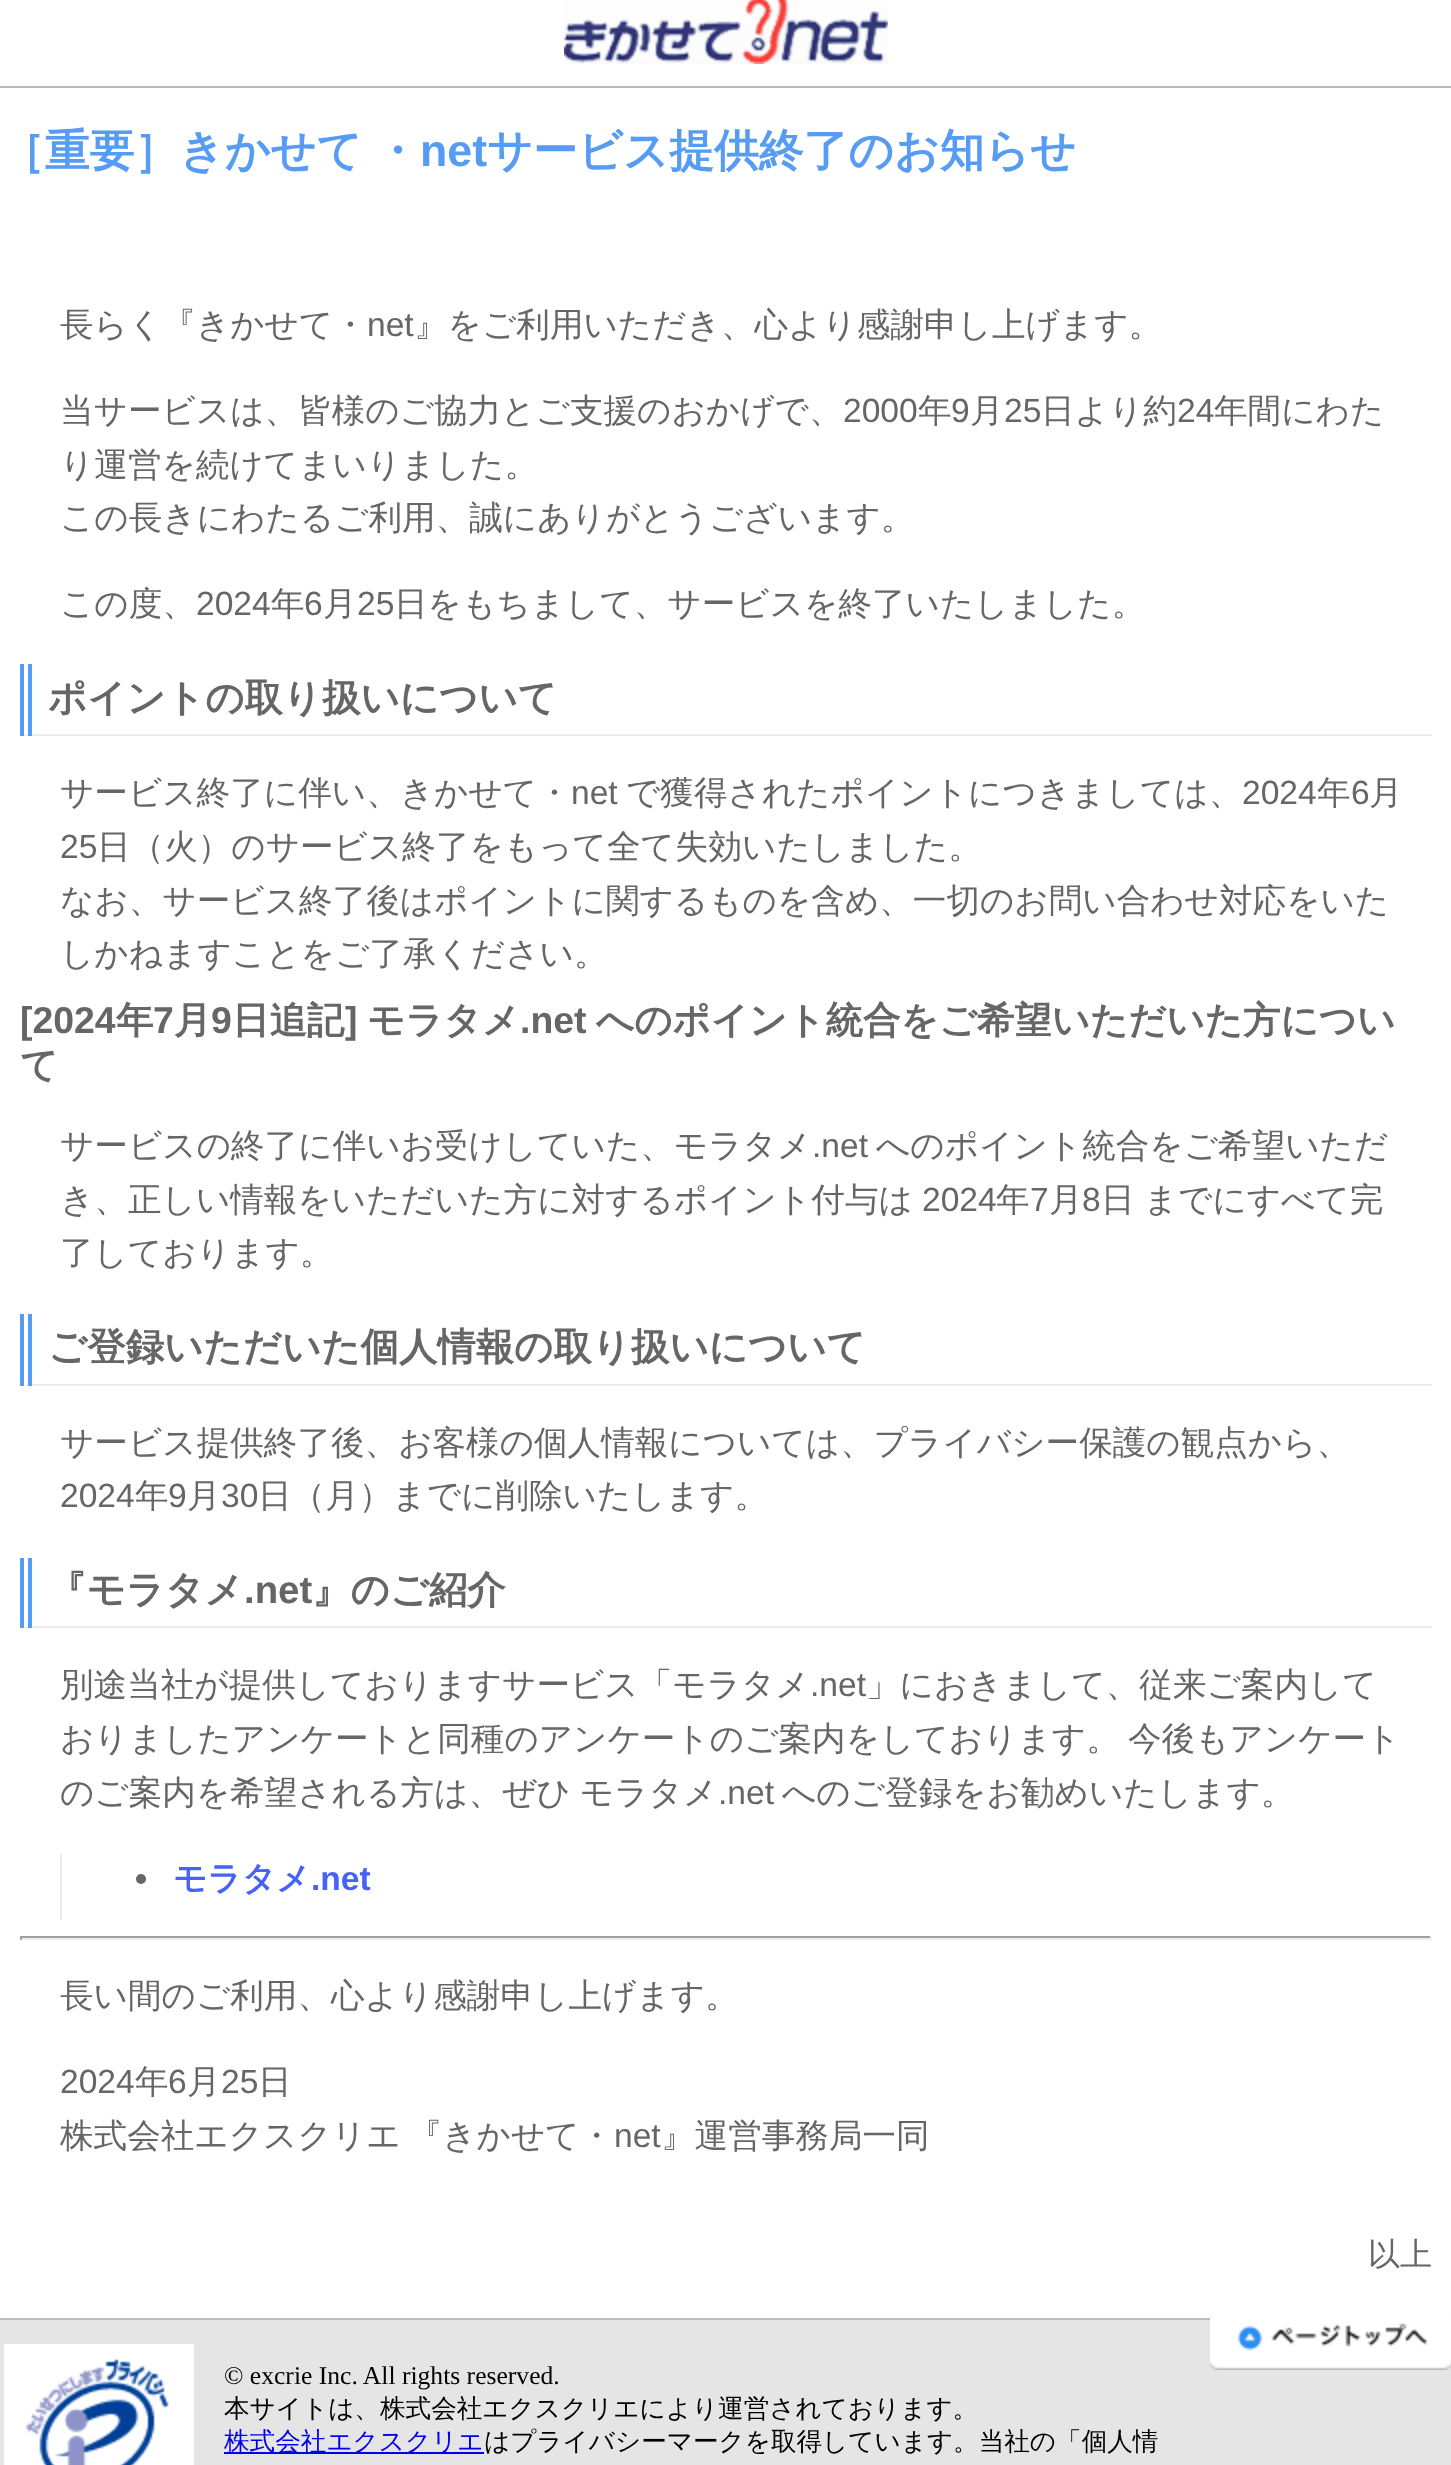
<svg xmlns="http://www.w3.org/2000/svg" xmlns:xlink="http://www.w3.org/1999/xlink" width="1451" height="2465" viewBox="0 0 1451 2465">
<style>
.cls-1{font:bold 44.75px WenQuanYi Zen Hei;fill:#569cf4}
.cls-2{font:bold 44.75px Liberation Sans;fill:#569cf4}
.cls-3{font:500 33.6px WenQuanYi Zen Hei;fill:#666666}
.cls-4{font:33.6px Liberation Sans;fill:#666666}
.cls-5{font:bold 38.4px WenQuanYi Zen Hei;fill:#666666}
.cls-6{font:bold 37.4px Liberation Sans;fill:#666666}
.cls-7{font:bold 37.4px WenQuanYi Zen Hei;fill:#666666}
.cls-8{font:bold 38.4px Liberation Sans;fill:#666666}
.cls-9{font:bold 33.6px WenQuanYi Zen Hei;fill:#4762fa}
.cls-10{font:bold 33.6px Liberation Sans;fill:#4762fa}
.cls-11{font:500 32px WenQuanYi Zen Hei;fill:#666666}
.cls-12{font:25.6px Liberation Serif;fill:#000000}
.cls-13{font:500 25.6px WenQuanYi Zen Hei;fill:#000000}
.cls-14{font:500 25.6px WenQuanYi Zen Hei;fill:#0000ee}
</style>
<rect width="100%" height="100%" fill="#ffffff"/>
<rect fill="#bababa" x="0" y="86" width="1451" height="2"/>
<image xlink:href="image0.png" x="564" y="0" width="324" height="64"/>
<path fill="#ededed" d="M1432 736H20L32 734H1432Z"/>
<rect fill="#569cf4" x="20" y="664" width="4" height="72"/>
<rect fill="#569cf4" x="28" y="664" width="4" height="72"/>
<path fill="#ededed" d="M1432 1386H20L32 1384H1432Z"/>
<rect fill="#569cf4" x="20" y="1314" width="4" height="72"/>
<rect fill="#569cf4" x="28" y="1314" width="4" height="72"/>
<path fill="#ededed" d="M1432 1628H20L32 1626H1432Z"/>
<rect fill="#569cf4" x="20" y="1558" width="4" height="70"/>
<rect fill="#569cf4" x="28" y="1558" width="4" height="70"/>
<rect fill="#ededed" x="60" y="1854" width="2" height="66"/>
<circle fill="#666666" cx="141" cy="1879" r="5"/>
<rect fill="#9f9f9f" x="20" y="1936" width="1412" height="2"/>
<rect fill="#eeeeee" x="1430" y="1936" width="2" height="4"/>
<rect fill="#eeeeee" x="20" y="1938" width="1412" height="2"/>
<rect fill="#9f9f9f" x="20" y="1936" width="2" height="4"/>
<rect fill="#e5e5e5" x="0" y="2320" width="1451" height="145"/>
<rect fill="#bdbcbd" x="0" y="2318" width="1210" height="2"/>
<image xlink:href="image1.png" x="4" y="2344" width="190" height="121"/>
<rect fill="#0000ee" x="224" y="2452" width="260" height="2"/>
<image xlink:href="image2.png" x="1210" y="2318" width="241" height="52"/>
<text class="cls-1" x="0" y="166" word-spacing="-1">［重要］きかせて ・</text>
<text class="cls-2" x="420" y="166">net</text>
<text class="cls-1" x="487" y="166">サービス提供終了のお知らせ</text>
<text class="cls-3" x="60" y="336">長らく『きかせて・</text>
<text class="cls-4" x="367" y="336">net</text>
<text class="cls-3" x="414" y="336">』をご利用いただき、心より感謝申し上げます。</text>
<text class="cls-3" x="60" y="422">当サービスは、皆様のご協力とご支援のおかげで、</text>
<text class="cls-4" x="843" y="422">2000</text>
<text class="cls-3" x="918" y="422">年</text>
<text class="cls-4" x="951" y="422">9</text>
<text class="cls-3" x="970" y="422">月</text>
<text class="cls-4" x="1004" y="422">25</text>
<text class="cls-3" x="1041" y="422">日より約</text>
<text class="cls-4" x="1177" y="422">24</text>
<text class="cls-3" x="1214" y="422">年間にわた</text>
<text class="cls-3"><tspan x="60" y="476">り運営を続けてまいりました。</tspan><tspan x="60" y="529">この長きにわたるご利用、誠にありがとうございます。</tspan></text>
<text class="cls-3" x="60" y="615">この度、</text>
<text class="cls-4" x="196" y="615">2024</text>
<text class="cls-3" x="271" y="615">年</text>
<text class="cls-4" x="304" y="615">6</text>
<text class="cls-3" x="323" y="615">月</text>
<text class="cls-4" x="357" y="615">25</text>
<text class="cls-3" x="394" y="615">日をもちまして、サービスを終了いたしました。</text>
<text class="cls-5" x="48" y="711">ポイントの取り扱いについて</text>
<text class="cls-3" x="60" y="804">サービス終了に伴い、きかせて・</text>
<text class="cls-4" x="571" y="804">net</text>
<text class="cls-3" x="626" y="804">で獲得されたポイントにつきましては、</text>
<text class="cls-4" x="1242" y="804">2024</text>
<text class="cls-3" x="1317" y="804">年</text>
<text class="cls-4" x="1351" y="804">6</text>
<text class="cls-3" x="1369" y="804">月</text>
<text class="cls-4" x="60" y="858">25</text>
<text class="cls-3" x="97" y="858">日（火）のサービス終了をもって全て失効いたしました。</text>
<text class="cls-3"><tspan x="60" y="912">なお、サービス終了後はポイントに関するものを含め、一切のお問い合わせ対応をいた</tspan><tspan x="60" y="965">しかねますことをご了承ください。</tspan></text>
<text class="cls-6" x="20" y="1033">[2024</text>
<text class="cls-7" x="116" y="1033">年</text>
<text class="cls-6" x="153" y="1033">7</text>
<text class="cls-7" x="174" y="1033">月</text>
<text class="cls-6" x="211" y="1033">9</text>
<text class="cls-7" x="232" y="1033">日追記</text>
<text class="cls-6" x="345" y="1033">]</text>
<text class="cls-7" x="367" y="1033">モラタメ</text>
<text class="cls-6" x="520" y="1033">.net</text>
<text class="cls-7" x="596" y="1033">へのポイント統合をご希望いただいた方につい</text>
<text class="cls-7" x="20" y="1078">て</text>
<text class="cls-3" x="60" y="1157">サービスの終了に伴いお受けしていた、モラタメ</text>
<text class="cls-4" x="812" y="1157">.net</text>
<text class="cls-3" x="876" y="1157">へのポイント統合をご希望いただ</text>
<text class="cls-3" x="60" y="1211">き、正しい情報をいただいた方に対するポイント付与は</text>
<text class="cls-4" x="922" y="1211">2024</text>
<text class="cls-3" x="996" y="1211">年</text>
<text class="cls-4" x="1030" y="1211">7</text>
<text class="cls-3" x="1049" y="1211">月</text>
<text class="cls-4" x="1082" y="1211">8</text>
<text class="cls-3" x="1101" y="1211" word-spacing="-1">日 までにすべて完</text>
<text class="cls-3" x="60" y="1264">了しております。</text>
<text class="cls-5" x="48" y="1360">ご登録いただいた個人情報の取り扱いについて</text>
<text class="cls-3" x="60" y="1454">サービス提供終了後、お客様の個人情報については、プライバシー保護の観点から、</text>
<text class="cls-4" x="60" y="1507">2024</text>
<text class="cls-3" x="135" y="1507">年</text>
<text class="cls-4" x="168" y="1507">9</text>
<text class="cls-3" x="187" y="1507">月</text>
<text class="cls-4" x="221" y="1507">30</text>
<text class="cls-3" x="258" y="1507">日（月）までに削除いたします。</text>
<text class="cls-5" x="48" y="1603">『モラタメ</text>
<text class="cls-8" x="244" y="1603">.net</text>
<text class="cls-5" x="312" y="1603">』のご紹介</text>
<text class="cls-3" x="60" y="1696">別途当社が提供しておりますサービス「モラタメ</text>
<text class="cls-4" x="810" y="1696">.net</text>
<text class="cls-3" x="866" y="1696">」におきまして、従来ご案内して</text>
<text class="cls-3"><tspan x="60" y="1750" word-spacing="-2">おりましたアンケートと同種のアンケートのご案内をしております。 今後もアンケート</tspan><tspan x="60" y="1804" word-spacing="-1">のご案内を希望される方は、ぜひ モラタメ</tspan></text>
<text class="cls-4" x="718" y="1804">.net</text>
<text class="cls-3" x="782" y="1804">へのご登録をお勧めいたします。</text>
<text class="cls-9" x="173" y="1890">モラタメ</text>
<text class="cls-10" x="311" y="1890">.net</text>
<text class="cls-3" x="60" y="2007">長い間のご利用、心より感謝申し上げます。</text>
<text class="cls-4" x="60" y="2093">2024</text>
<text class="cls-3" x="135" y="2093">年</text>
<text class="cls-4" x="168" y="2093">6</text>
<text class="cls-3" x="187" y="2093">月</text>
<text class="cls-4" x="221" y="2093">25</text>
<text class="cls-3" x="258" y="2093">日</text>
<text class="cls-3" x="60" y="2147" word-spacing="-2">株式会社エクスクリエ 『きかせて・</text>
<text class="cls-4" x="614" y="2147">net</text>
<text class="cls-3" x="661" y="2147">』運営事務局一同</text>
<text class="cls-11" x="1368" y="2265">以上</text>
<text class="cls-12" x="224" y="2384">© excrie Inc. All rights reserved.</text>
<text class="cls-13" x="224" y="2417">本サイトは、株式会社エクスクリエにより運営されております。</text>
<text class="cls-14" x="224" y="2450">株式会社エクスクリエ</text>
<text class="cls-13" x="484" y="2450">はプライバシーマークを取得しています。当社の「個人情</text>
</svg>
